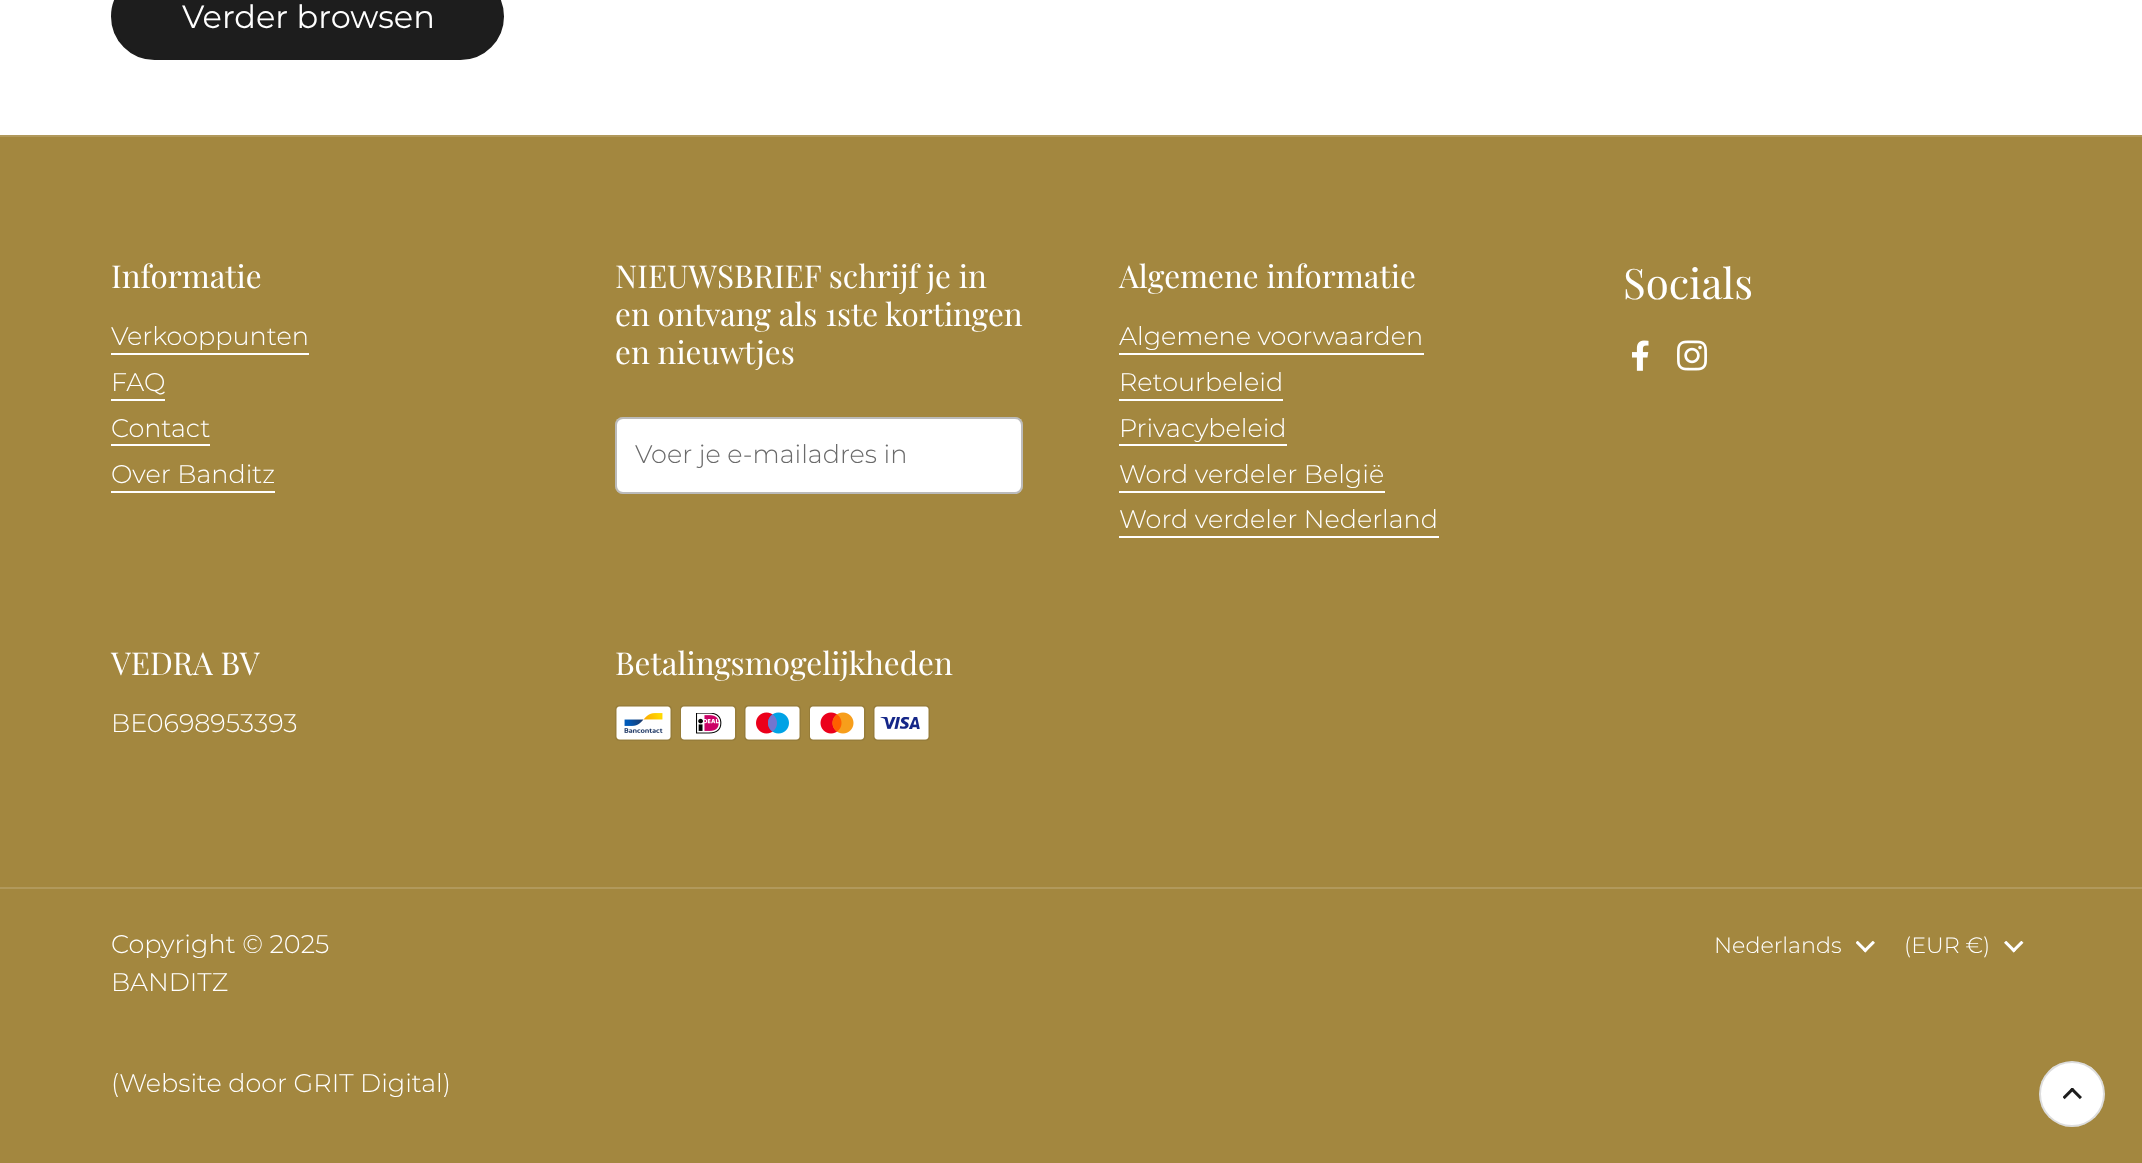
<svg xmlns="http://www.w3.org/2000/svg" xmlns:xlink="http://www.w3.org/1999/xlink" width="2142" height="1163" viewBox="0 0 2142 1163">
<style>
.cls-1{font:32px Montserrat;fill:#ffffff}
.cls-2{font:31.5px Playfair Display;fill:#ffffff}
.cls-3{font:300 25.5px Montserrat;fill:#ffffff}
.cls-4{font:300 25.5px Montserrat;fill:#6a6a6a}
.cls-5{font:42px Playfair Display;fill:#ffffff}
.cls-6{font:300 22.25px Montserrat;fill:#ffffff}
</style>
<rect width="100%" height="100%" fill="#ffffff"/>
<rect fill="#1d1d1d" stroke="#1d1d1d" stroke-width="2" x="112" y="-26" width="391" height="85" rx="42.5"/>
<rect fill="#a3873f" x="0" y="137" width="2142" height="1026"/>
<rect fill="#b1995c" x="0" y="135" width="2142" height="2"/>
<rect fill="#ffffff" x="111" y="353" width="198" height="2"/>
<rect fill="#ffffff" x="111" y="399" width="54" height="2"/>
<rect fill="#ffffff" x="111" y="444" width="99" height="2"/>
<rect fill="#ffffff" x="111" y="491" width="164" height="2"/>
<rect fill="#ffffff" x="615" y="417" width="408" height="77" rx="8"/>
<rect fill="none" stroke="#1d1d1d" stroke-opacity="0.3" stroke-width="2" x="616" y="418" width="406" height="75" rx="7"/>
<rect fill="#ffffff" x="1119" y="353" width="305" height="2"/>
<rect fill="#ffffff" x="1119" y="399" width="164" height="2"/>
<rect fill="#ffffff" x="1119" y="444" width="168" height="2"/>
<rect fill="#ffffff" x="1119" y="491" width="266" height="2"/>
<rect fill="#ffffff" x="1119" y="536" width="320" height="2"/>
<image xlink:href="image0.png" x="1632" y="340" width="17" height="31"/>
<image xlink:href="image1.png" x="1677" y="340" width="30" height="31"/>
<image xlink:href="image2.png" x="615" y="705" width="57" height="36"/>
<image xlink:href="image3.png" x="680" y="705" width="57" height="36"/>
<image xlink:href="image4.png" x="744" y="705" width="57" height="36"/>
<image xlink:href="image5.png" x="809" y="705" width="57" height="36"/>
<image xlink:href="image6.png" x="873" y="705" width="57" height="36"/>
<rect fill="#b1995c" x="0" y="887" width="2142" height="2"/>
<image xlink:href="image7.png" x="1856" y="941" width="19" height="12"/>
<image xlink:href="image8.png" x="2004" y="941" width="20" height="12"/>
<circle fill="#ffffff" cx="2072" cy="1094" r="33"/>
<circle fill="none" stroke="#1d1d1d" stroke-opacity="0.15" stroke-width="2" cx="2072" cy="1094" r="32"/>
<image xlink:href="image9.png" x="2063" y="1088" width="19" height="12"/>
<text class="cls-1" x="182" y="28">Verder browsen</text>
<text class="cls-2" x="111" y="288">Informatie</text>
<text class="cls-3"><tspan x="111" y="345">Verkooppunten</tspan><tspan x="111" y="391">FAQ</tspan><tspan x="111" y="437">Contact</tspan><tspan x="111" y="483">Over Banditz</tspan></text>
<text class="cls-2"><tspan x="615" y="288">NIEUWSBRIEF schrijf je in</tspan><tspan x="615" y="326">en ontvang als 1ste kortingen</tspan><tspan x="615" y="364">en nieuwtjes</tspan></text>
<text class="cls-4" x="635" y="463">Voer je e-mailadres in</text>
<text class="cls-2" x="1119" y="288">Algemene informatie</text>
<text class="cls-3"><tspan x="1119" y="345">Algemene voorwaarden</tspan><tspan x="1119" y="391">Retourbeleid</tspan><tspan x="1119" y="437">Privacybeleid</tspan><tspan x="1119" y="483">Word verdeler België</tspan><tspan x="1119" y="528">Word verdeler Nederland</tspan></text>
<text class="cls-5" x="1623" y="299">Socials</text>
<text class="cls-2" x="111" y="675">VEDRA BV</text>
<text class="cls-3" x="111" y="732">BE0698953393</text>
<text class="cls-2" x="615" y="675">Betalingsmogelijkheden</text>
<text class="cls-3"><tspan x="111" y="953">Copyright © 2025</tspan><tspan x="111" y="991">BANDITZ</tspan></text>
<text class="cls-3" x="111" y="1092">(Website door GRIT Digital)</text>
<text class="cls-6" x="1714" y="953">Nederlands</text>
<text class="cls-6" x="1904" y="953">(EUR €)</text>
</svg>
